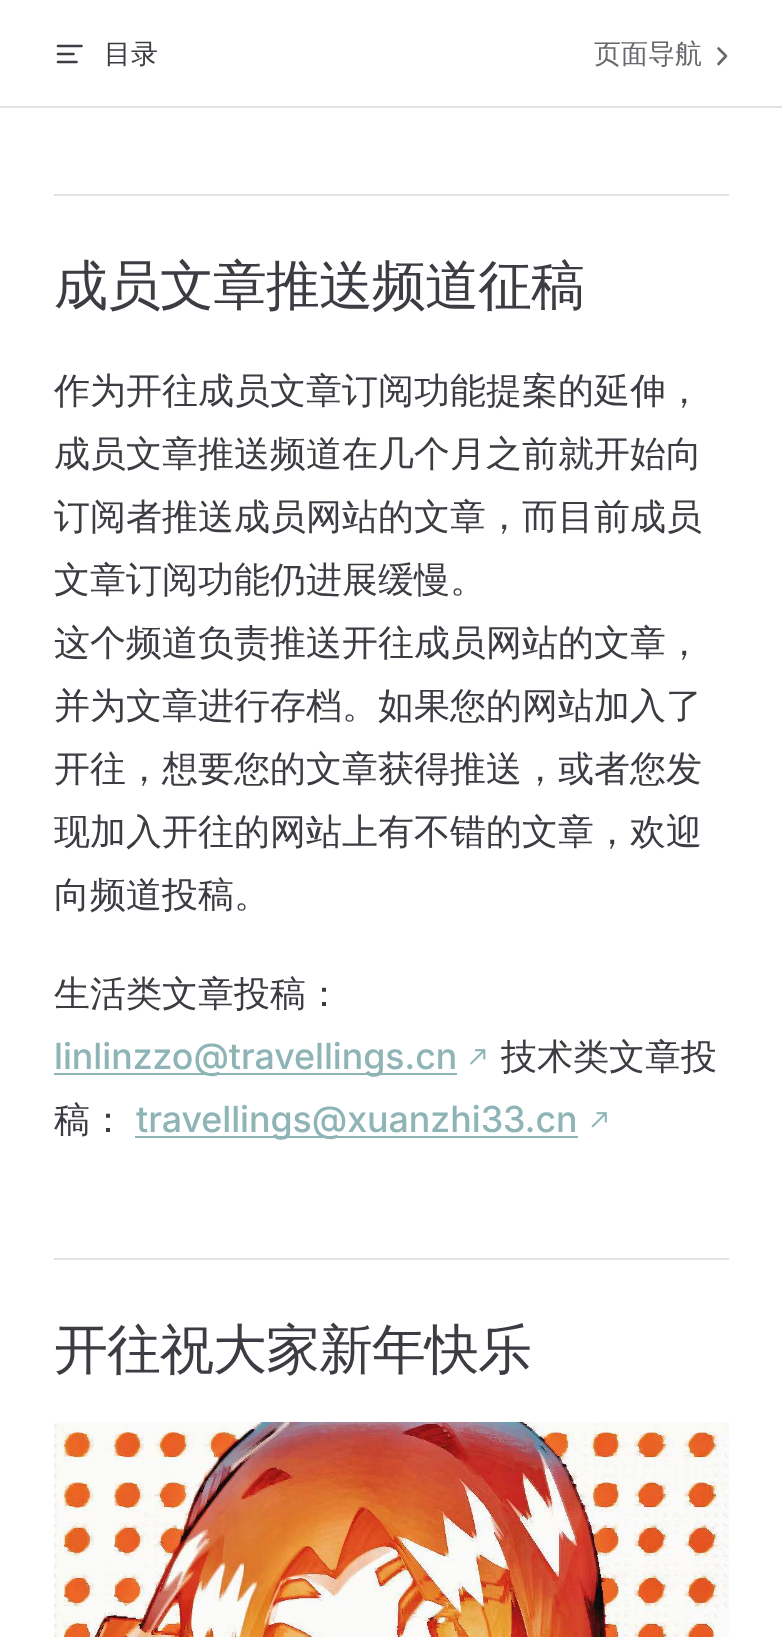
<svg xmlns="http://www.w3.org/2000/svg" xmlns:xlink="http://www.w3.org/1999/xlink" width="782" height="1637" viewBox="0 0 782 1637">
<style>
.cls-1{font:500 27px WenQuanYi Zen Hei;fill:#3c3c43}
.cls-2{font:500 27px WenQuanYi Zen Hei;fill:#67676c}
.cls-3{font:500 54px WenQuanYi Zen Hei;letter-spacing:-1px;fill:#3c3c43}
.cls-4{font:500 36px WenQuanYi Zen Hei;fill:#3c3c43}
.cls-5{font:500 36px Inter;fill:#8eb4b6}
</style>
<rect width="100%" height="100%" fill="#ffffff"/>
<rect fill="#e2e2e3" x="0" y="106" width="782" height="2"/>
<path fill="none" stroke="#3c3c43" stroke-width="2.6" stroke-linecap="round" stroke-linejoin="round" d="M81.5 46H58M73.5 54H58M76.5 62H58"/>
<path fill="none" stroke="#67676c" stroke-width="2.6" stroke-linecap="round" stroke-linejoin="round" d="M718.5 64L726 56L718.5 48.5"/>
<rect fill="#e2e2e3" x="54" y="194" width="675" height="2"/>
<rect fill="#8eb4b6" x="54" y="1073" width="403" height="2"/>
<image xlink:href="image0.png" x="470" y="1049" width="16" height="16"/>
<rect fill="#8eb4b6" x="135" y="1136" width="443" height="2"/>
<image xlink:href="image1.png" x="591" y="1112" width="16" height="16"/>
<rect fill="#e2e2e3" x="54" y="1258" width="675" height="2"/>
<image xlink:href="image2.png" x="54" y="1422" width="675" height="215"/>
<text class="cls-1" x="104" y="63">目录</text>
<text class="cls-2" x="594" y="63">页面导航</text>
<text class="cls-3" x="54" y="304">成员文章推送频道征稿</text>
<text class="cls-4"><tspan x="54" y="403">作为开往成员文章订阅功能提案的延伸，</tspan><tspan x="54" y="466">成员文章推送频道在几个月之前就开始向</tspan><tspan x="54" y="529">订阅者推送成员网站的文章，而目前成员</tspan><tspan x="54" y="592">文章订阅功能仍进展缓慢。</tspan><tspan x="54" y="655">这个频道负责推送开往成员网站的文章，</tspan><tspan x="54" y="718">并为文章进行存档。如果您的网站加入了</tspan><tspan x="54" y="781">开往，想要您的文章获得推送，或者您发</tspan><tspan x="54" y="844">现加入开往的网站上有不错的文章，欢迎</tspan><tspan x="54" y="907">向频道投稿。</tspan></text>
<text class="cls-4" x="54" y="1006">生活类文章投稿：</text>
<text class="cls-5" x="54" y="1069">linlinzzo@travellings.cn</text>
<text class="cls-4" x="501" y="1069">技术类文章投</text>
<text class="cls-4" x="54" y="1132">稿：</text>
<text class="cls-5" x="136" y="1132">travellings@xuanzhi33.cn</text>
<text class="cls-3" x="54" y="1368">开往祝大家新年快乐</text>
</svg>
